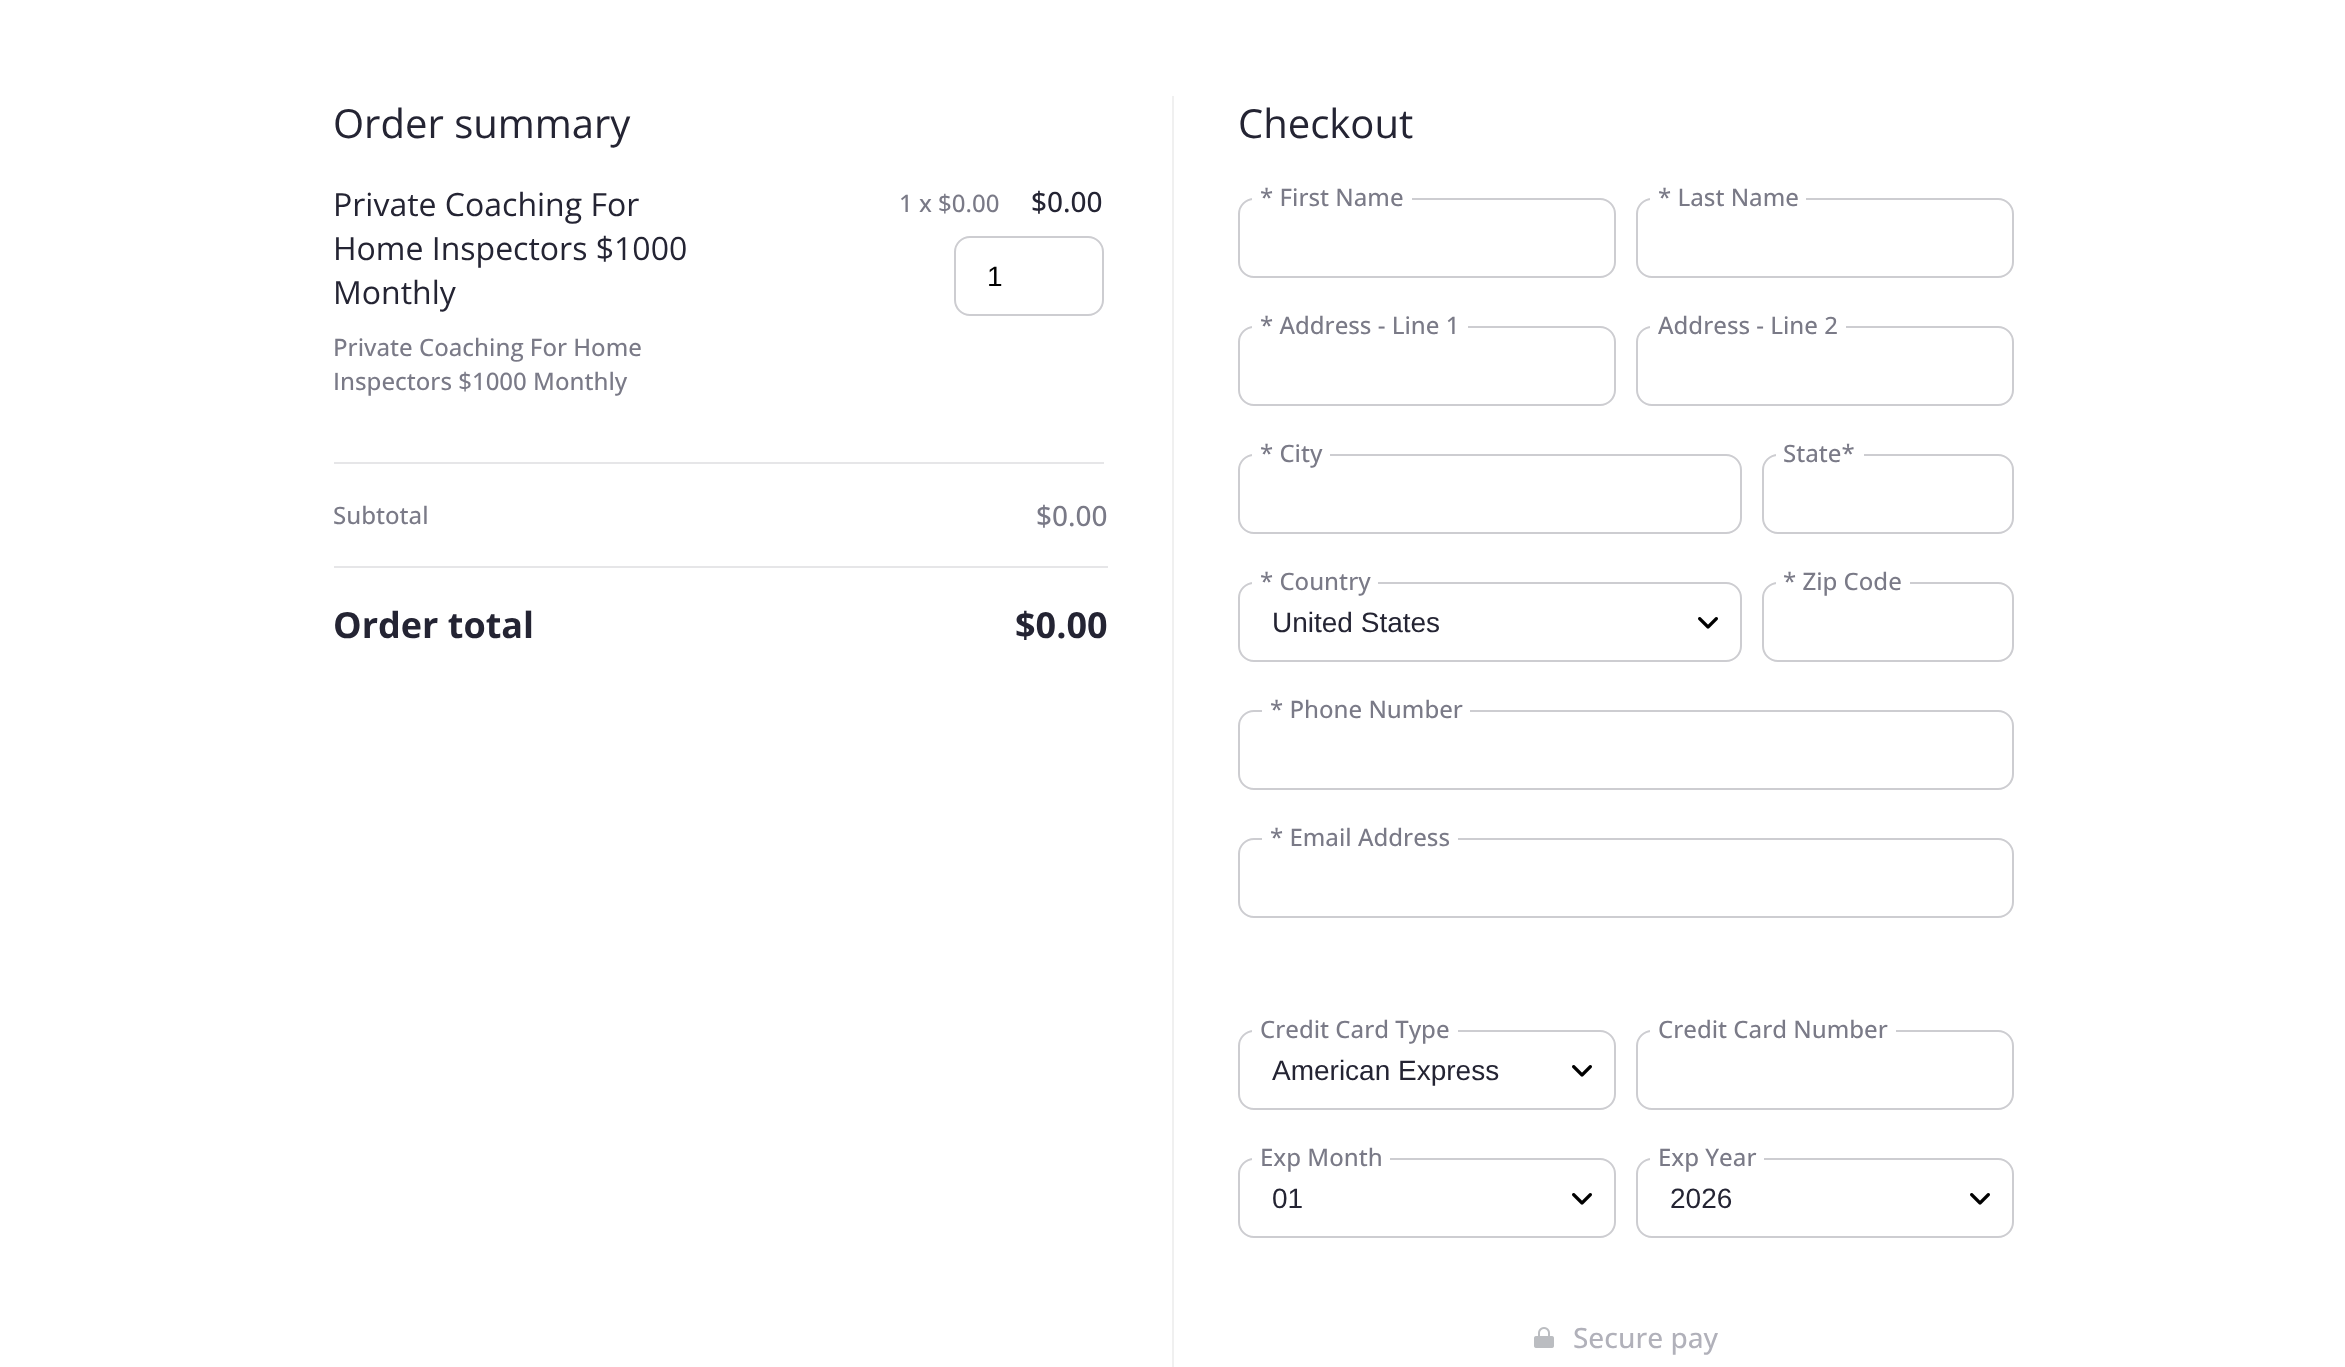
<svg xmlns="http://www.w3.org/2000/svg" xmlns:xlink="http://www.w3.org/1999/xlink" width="2345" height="1367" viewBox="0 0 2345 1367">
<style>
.cls-1{font:40px Open Sans;fill:#242433}
.cls-2{font:32px Open Sans;fill:#242433}
.cls-3{font:500 24px Open Sans;fill:#7a7a87}
.cls-4{font:500 28px Open Sans;fill:#242433}
.cls-5{font:28px Liberation Sans;fill:#000000}
.cls-6{font:500 28px Open Sans;fill:#7a7a87}
.cls-7{font:bold 36px Open Sans;fill:#242433}
.cls-8{font:28px Liberation Sans;fill:#242433}
.cls-9{font:500 28px Open Sans;fill:#b1b1ba}
</style>
<defs>
<linearGradient id="g1" gradientUnits="userSpaceOnUse" x1="1332" y1="222" x2="1332" y2="174"><stop offset="0" stop-color="#000000" stop-opacity="0"/><stop offset="0.42" stop-color="#ffffff" stop-opacity="0"/><stop offset="0.42" stop-color="#ffffff"/><stop offset="0.51" stop-color="#ffffff"/><stop offset="0.51" stop-color="#ffffff" stop-opacity="0"/></linearGradient>
<linearGradient id="g2" gradientUnits="userSpaceOnUse" x1="1728" y1="222" x2="1728" y2="174"><stop offset="0" stop-color="#000000" stop-opacity="0"/><stop offset="0.42" stop-color="#ffffff" stop-opacity="0"/><stop offset="0.42" stop-color="#ffffff"/><stop offset="0.51" stop-color="#ffffff"/><stop offset="0.51" stop-color="#ffffff" stop-opacity="0"/></linearGradient>
<linearGradient id="g3" gradientUnits="userSpaceOnUse" x1="1360" y1="350" x2="1360" y2="302"><stop offset="0" stop-color="#000000" stop-opacity="0"/><stop offset="0.42" stop-color="#ffffff" stop-opacity="0"/><stop offset="0.42" stop-color="#ffffff"/><stop offset="0.51" stop-color="#ffffff"/><stop offset="0.51" stop-color="#ffffff" stop-opacity="0"/></linearGradient>
<linearGradient id="g4" gradientUnits="userSpaceOnUse" x1="1748" y1="350" x2="1748" y2="302"><stop offset="0" stop-color="#000000" stop-opacity="0"/><stop offset="0.42" stop-color="#ffffff" stop-opacity="0"/><stop offset="0.42" stop-color="#ffffff"/><stop offset="0.51" stop-color="#ffffff"/><stop offset="0.51" stop-color="#ffffff" stop-opacity="0"/></linearGradient>
<linearGradient id="g5" gradientUnits="userSpaceOnUse" x1="1291" y1="478" x2="1291" y2="430"><stop offset="0" stop-color="#000000" stop-opacity="0"/><stop offset="0.42" stop-color="#ffffff" stop-opacity="0"/><stop offset="0.42" stop-color="#ffffff"/><stop offset="0.51" stop-color="#ffffff"/><stop offset="0.51" stop-color="#ffffff" stop-opacity="0"/></linearGradient>
<linearGradient id="g6" gradientUnits="userSpaceOnUse" x1="1820" y1="478" x2="1820" y2="430"><stop offset="0" stop-color="#000000" stop-opacity="0"/><stop offset="0.42" stop-color="#ffffff" stop-opacity="0"/><stop offset="0.42" stop-color="#ffffff"/><stop offset="0.51" stop-color="#ffffff"/><stop offset="0.51" stop-color="#ffffff" stop-opacity="0"/></linearGradient>
<linearGradient id="g7" gradientUnits="userSpaceOnUse" x1="1315" y1="606" x2="1315" y2="558"><stop offset="0" stop-color="#000000" stop-opacity="0"/><stop offset="0.42" stop-color="#ffffff" stop-opacity="0"/><stop offset="0.42" stop-color="#ffffff"/><stop offset="0.51" stop-color="#ffffff"/><stop offset="0.51" stop-color="#ffffff" stop-opacity="0"/></linearGradient>
<linearGradient id="g8" gradientUnits="userSpaceOnUse" x1="1843" y1="606" x2="1843" y2="558"><stop offset="0" stop-color="#000000" stop-opacity="0"/><stop offset="0.42" stop-color="#ffffff" stop-opacity="0"/><stop offset="0.42" stop-color="#ffffff"/><stop offset="0.51" stop-color="#ffffff"/><stop offset="0.51" stop-color="#ffffff" stop-opacity="0"/></linearGradient>
<linearGradient id="g9" gradientUnits="userSpaceOnUse" x1="1366" y1="734" x2="1366" y2="686"><stop offset="0" stop-color="#000000" stop-opacity="0"/><stop offset="0.42" stop-color="#ffffff" stop-opacity="0"/><stop offset="0.42" stop-color="#ffffff"/><stop offset="0.51" stop-color="#ffffff"/><stop offset="0.51" stop-color="#ffffff" stop-opacity="0"/></linearGradient>
<linearGradient id="g10" gradientUnits="userSpaceOnUse" x1="1360" y1="862" x2="1360" y2="814"><stop offset="0" stop-color="#000000" stop-opacity="0"/><stop offset="0.42" stop-color="#ffffff" stop-opacity="0"/><stop offset="0.42" stop-color="#ffffff"/><stop offset="0.51" stop-color="#ffffff"/><stop offset="0.51" stop-color="#ffffff" stop-opacity="0"/></linearGradient>
<linearGradient id="g11" gradientUnits="userSpaceOnUse" x1="1355" y1="1054" x2="1355" y2="1006"><stop offset="0" stop-color="#000000" stop-opacity="0"/><stop offset="0.42" stop-color="#ffffff" stop-opacity="0"/><stop offset="0.42" stop-color="#ffffff"/><stop offset="0.51" stop-color="#ffffff"/><stop offset="0.51" stop-color="#ffffff" stop-opacity="0"/></linearGradient>
<linearGradient id="g12" gradientUnits="userSpaceOnUse" x1="1773" y1="1054" x2="1773" y2="1006"><stop offset="0" stop-color="#000000" stop-opacity="0"/><stop offset="0.42" stop-color="#ffffff" stop-opacity="0"/><stop offset="0.42" stop-color="#ffffff"/><stop offset="0.51" stop-color="#ffffff"/><stop offset="0.51" stop-color="#ffffff" stop-opacity="0"/></linearGradient>
<linearGradient id="g13" gradientUnits="userSpaceOnUse" x1="1321" y1="1182" x2="1321" y2="1134"><stop offset="0" stop-color="#000000" stop-opacity="0"/><stop offset="0.42" stop-color="#ffffff" stop-opacity="0"/><stop offset="0.42" stop-color="#ffffff"/><stop offset="0.51" stop-color="#ffffff"/><stop offset="0.51" stop-color="#ffffff" stop-opacity="0"/></linearGradient>
<linearGradient id="g14" gradientUnits="userSpaceOnUse" x1="1707" y1="1182" x2="1707" y2="1134"><stop offset="0" stop-color="#000000" stop-opacity="0"/><stop offset="0.42" stop-color="#ffffff" stop-opacity="0"/><stop offset="0.42" stop-color="#ffffff"/><stop offset="0.51" stop-color="#ffffff"/><stop offset="0.51" stop-color="#ffffff" stop-opacity="0"/></linearGradient>
</defs>
<rect width="100%" height="100%" fill="#ffffff"/>
<rect fill="#f0f0f0" x="1172" y="96" width="2" height="1271"/>
<rect fill="#e6e6e8" x="334" y="462" width="770" height="2"/>
<rect fill="none" stroke="#cdcdd1" stroke-width="2" x="955" y="237" width="148" height="78" rx="15"/>
<rect fill="#e6e6e8" x="334" y="566" width="774" height="2"/>
<rect fill="none" stroke="#cdcdd1" stroke-width="2" x="1239" y="199" width="376" height="78" rx="15"/>
<rect fill="url(#g1)" x="1252" y="198" width="160" height="3"/>
<rect fill="none" stroke="#cdcdd1" stroke-width="2" x="1637" y="199" width="376" height="78" rx="15"/>
<rect fill="url(#g2)" x="1650" y="198" width="156" height="3"/>
<rect fill="none" stroke="#cdcdd1" stroke-width="2" x="1239" y="327" width="376" height="78" rx="15"/>
<rect fill="url(#g3)" x="1252" y="326" width="216" height="3"/>
<rect fill="none" stroke="#cdcdd1" stroke-width="2" x="1637" y="327" width="376" height="78" rx="15"/>
<rect fill="url(#g4)" x="1650" y="326" width="196" height="3"/>
<rect fill="none" stroke="#cdcdd1" stroke-width="2" x="1239" y="455" width="502" height="78" rx="15"/>
<rect fill="url(#g5)" x="1252" y="454" width="78" height="3"/>
<rect fill="none" stroke="#cdcdd1" stroke-width="2" x="1763" y="455" width="250" height="78" rx="15"/>
<rect fill="url(#g6)" x="1776" y="454" width="88" height="3"/>
<image xlink:href="image0.png" x="1698" y="617" width="20" height="12"/>
<rect fill="none" stroke="#cdcdd1" stroke-width="2" x="1239" y="583" width="502" height="78" rx="15"/>
<rect fill="url(#g7)" x="1252" y="582" width="126" height="3"/>
<rect fill="none" stroke="#cdcdd1" stroke-width="2" x="1763" y="583" width="250" height="78" rx="15"/>
<rect fill="url(#g8)" x="1776" y="582" width="134" height="3"/>
<rect fill="none" stroke="#cdcdd1" stroke-width="2" x="1239" y="711" width="774" height="78" rx="15"/>
<rect fill="url(#g9)" x="1262" y="710" width="208" height="2"/>
<rect fill="none" stroke="#cdcdd1" stroke-width="2" x="1239" y="839" width="774" height="78" rx="15"/>
<rect fill="url(#g10)" x="1262" y="838" width="196" height="2"/>
<image xlink:href="image0.png" x="1572" y="1065" width="20" height="12"/>
<rect fill="none" stroke="#cdcdd1" stroke-width="2" x="1239" y="1031" width="376" height="78" rx="15"/>
<rect fill="url(#g11)" x="1252" y="1030" width="206" height="3"/>
<rect fill="none" stroke="#cdcdd1" stroke-width="2" x="1637" y="1031" width="376" height="78" rx="15"/>
<rect fill="url(#g12)" x="1650" y="1030" width="246" height="3"/>
<image xlink:href="image0.png" x="1572" y="1193" width="20" height="12"/>
<rect fill="none" stroke="#cdcdd1" stroke-width="2" x="1239" y="1159" width="376" height="78" rx="15"/>
<rect fill="url(#g13)" x="1252" y="1158" width="138" height="3"/>
<image xlink:href="image0.png" x="1970" y="1193" width="20" height="12"/>
<rect fill="none" stroke="#cdcdd1" stroke-width="2" x="1637" y="1159" width="376" height="78" rx="15"/>
<rect fill="url(#g14)" x="1650" y="1158" width="114" height="3"/>
<image xlink:href="image1.png" x="1534" y="1327" width="20" height="21"/>
<text class="cls-1" x="333" y="138">Order summary</text>
<text class="cls-2"><tspan x="333" y="216">Private Coaching For</tspan><tspan x="333" y="260">Home Inspectors $1000</tspan><tspan x="333" y="304">Monthly</tspan></text>
<text class="cls-3"><tspan x="333" y="356">Private Coaching For Home</tspan><tspan x="333" y="390">Inspectors $1000 Monthly</tspan></text>
<text class="cls-3" x="899" y="212">1 x $0.00</text>
<text class="cls-4" x="1031" y="212">$0.00</text>
<text class="cls-5" x="987" y="286">1</text>
<text class="cls-3" x="333" y="524">Subtotal</text>
<text class="cls-6" x="1036" y="526">$0.00</text>
<text class="cls-7" x="333" y="638">Order total</text>
<text class="cls-7" x="1015" y="638">$0.00</text>
<text class="cls-1" x="1238" y="138">Checkout</text>
<text class="cls-3" x="1260" y="206">* First Name</text>
<text class="cls-3" x="1658" y="206">* Last Name</text>
<text class="cls-3" x="1260" y="334">* Address - Line 1</text>
<text class="cls-3" x="1658" y="334">Address - Line 2</text>
<text class="cls-3" x="1260" y="462">* City</text>
<text class="cls-3" x="1783" y="462">State*</text>
<text class="cls-3" x="1260" y="590">* Country</text>
<text class="cls-8" x="1272" y="632">United States</text>
<text class="cls-3" x="1783" y="590">* Zip Code</text>
<text class="cls-3" x="1270" y="718">* Phone Number</text>
<text class="cls-3" x="1270" y="846">* Email Address</text>
<text class="cls-3" x="1260" y="1038">Credit Card Type</text>
<text class="cls-8" x="1272" y="1080">American Express</text>
<text class="cls-3" x="1658" y="1038">Credit Card Number</text>
<text class="cls-3" x="1260" y="1166">Exp Month</text>
<text class="cls-8" x="1272" y="1208">01</text>
<text class="cls-3" x="1658" y="1166">Exp Year</text>
<text class="cls-8" x="1670" y="1208">2026</text>
<text class="cls-9" x="1573" y="1348">Secure pay</text>
</svg>
